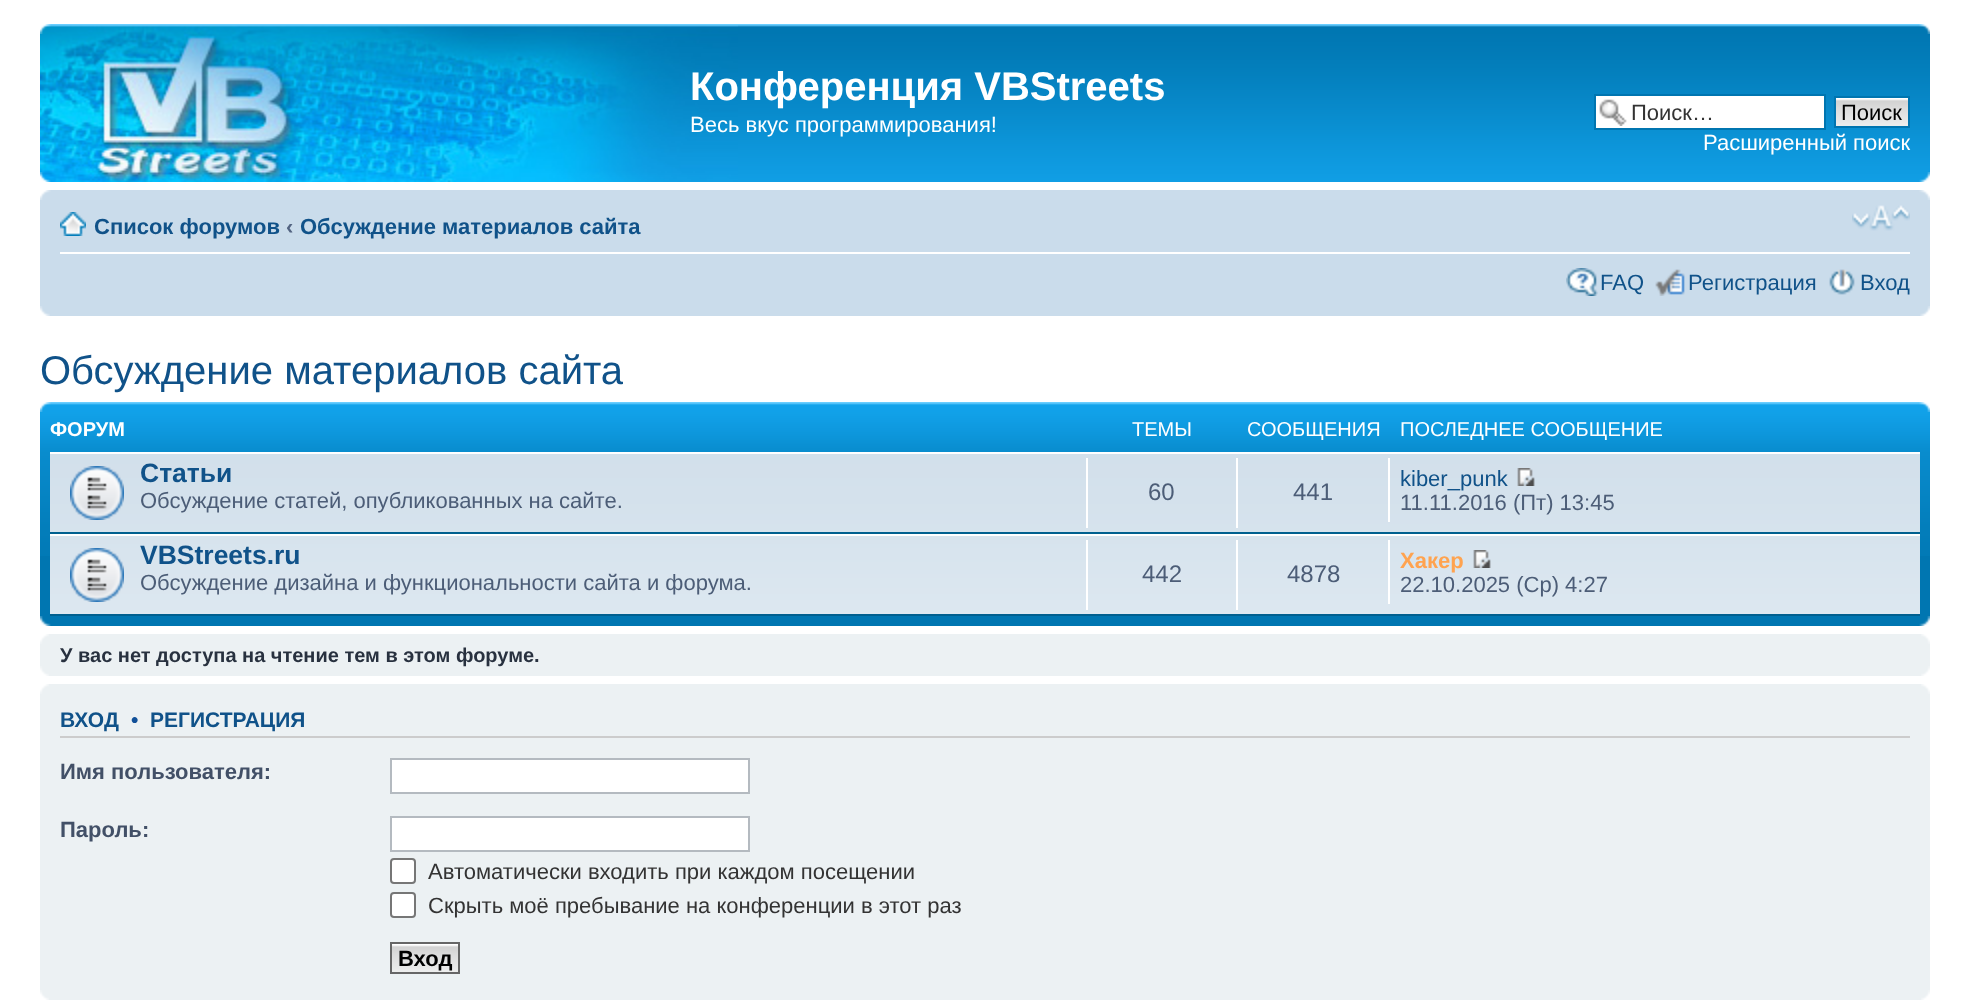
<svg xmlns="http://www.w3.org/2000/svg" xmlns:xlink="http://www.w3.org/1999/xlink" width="1969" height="1000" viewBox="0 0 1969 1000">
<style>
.cls-1{font:bold 40px Liberation Sans;fill:#ffffff}
.cls-2{font:22px Liberation Sans;fill:#ffffff}
.cls-3{font:22px Liberation Sans;fill:#333333}
.cls-4{font:22px Liberation Sans;fill:#000000}
.cls-5{font:bold 22px Liberation Sans;fill:#105289}
.cls-6{font:bold 22px Liberation Sans;fill:#536482}
.cls-7{font:22px Liberation Sans;fill:#105289}
.cls-8{font:40px Liberation Sans;fill:#105289}
.cls-9{font:bold 20px Liberation Sans;fill:#ffffff}
.cls-10{font:20px Liberation Sans;fill:#ffffff}
.cls-11{font:bold 26.5px Liberation Sans;fill:#105289}
.cls-12{font:22px Liberation Sans;fill:#4c5d77}
.cls-13{font:24px Liberation Sans;fill:#4c5d77}
.cls-14{font:bold 22px Liberation Sans;fill:#ffa34f}
.cls-15{font:bold 20px Liberation Sans;fill:#28313f}
.cls-16{font:bold 21px Liberation Sans;fill:#105289}
.cls-17{font:bold 21px Liberation Sans;fill:#115098}
.cls-18{font:bold 22px Liberation Sans;fill:#425067}
.cls-19{font:bold 22px Liberation Sans;fill:#000000}
</style>
<rect width="100%" height="100%" fill="#ffffff"/>
<image xlink:href="image0.png" x="43" y="24" width="1887" height="158"/>
<image xlink:href="image1.png" x="40" y="25" width="698" height="157"/>
<image xlink:href="image2.png" x="40" y="24" width="11" height="10"/>
<image xlink:href="image3.png" x="1919" y="24" width="11" height="10"/>
<rect fill="#ffffff" x="1596" y="96" width="228" height="32"/>
<image xlink:href="image4.png" x="1599" y="99" width="28" height="27"/>
<rect fill="none" stroke="#0075b0" stroke-width="2" x="1595" y="95" width="230" height="34"/>
<image xlink:href="image5.png" x="1836" y="98" width="72" height="28"/>
<rect fill="none" stroke="#0075b0" stroke-width="2" x="1835" y="97" width="74" height="30"/>
<image xlink:href="image6.png" x="40" y="172" width="11" height="10"/>
<image xlink:href="image7.png" x="1919" y="172" width="11" height="10"/>
<rect fill="#cadceb" x="40" y="190" width="1890" height="126"/>
<image xlink:href="image8.png" x="40" y="190" width="11" height="10"/>
<image xlink:href="image9.png" x="1919" y="190" width="11" height="10"/>
<rect fill="#ffffff" x="60" y="252" width="1850" height="2"/>
<image xlink:href="image10.png" x="60" y="212" width="26" height="24"/>
<image xlink:href="image11.png" x="1852" y="205" width="58" height="26"/>
<image xlink:href="image12.png" x="1566" y="268" width="32" height="28"/>
<image xlink:href="image13.png" x="1655" y="269" width="30" height="27"/>
<image xlink:href="image14.png" x="1829" y="269" width="26" height="26"/>
<image xlink:href="image15.png" x="40" y="306" width="10" height="10"/>
<image xlink:href="image16.png" x="1920" y="306" width="10" height="10"/>
<rect fill="#0076b1" x="40" y="556" width="1890" height="70"/>
<image xlink:href="image17.png" x="40" y="402" width="1890" height="154"/>
<image xlink:href="image18.png" x="40" y="402" width="11" height="10"/>
<image xlink:href="image19.png" x="1919" y="402" width="11" height="10"/>
<image xlink:href="image20.png" x="50" y="454" width="1870" height="160"/>
<rect fill="#ffffff" x="50" y="452" width="1870" height="2"/>
<rect fill="#00608f" x="50" y="532" width="1870" height="2"/>
<image xlink:href="image21.png" x="70" y="466" width="54" height="54"/>
<rect fill="#ffffff" x="1086" y="458" width="2" height="70"/>
<rect fill="#ffffff" x="1236" y="458" width="2" height="70"/>
<rect fill="#ffffff" x="1388" y="458" width="2" height="64"/>
<image xlink:href="image22.png" x="1517" y="468" width="18" height="18"/>
<rect fill="#ffffff" x="50" y="534" width="1870" height="2"/>
<rect fill="#00608f" x="50" y="614" width="1870" height="2"/>
<image xlink:href="image23.png" x="70" y="548" width="54" height="54"/>
<rect fill="#ffffff" x="1086" y="540" width="2" height="70"/>
<rect fill="#ffffff" x="1236" y="540" width="2" height="70"/>
<rect fill="#ffffff" x="1388" y="540" width="2" height="64"/>
<image xlink:href="image24.png" x="1473" y="550" width="18" height="18"/>
<image xlink:href="image25.png" x="40" y="616" width="11" height="10"/>
<image xlink:href="image26.png" x="1919" y="616" width="11" height="10"/>
<rect fill="#ecf1f3" x="40" y="634" width="1890" height="42"/>
<image xlink:href="image27.png" x="40" y="634" width="9" height="10"/>
<image xlink:href="image28.png" x="1921" y="634" width="9" height="10"/>
<image xlink:href="image29.png" x="40" y="666" width="9" height="10"/>
<image xlink:href="image30.png" x="1921" y="666" width="9" height="10"/>
<rect fill="#ecf1f3" x="40" y="684" width="1890" height="316"/>
<image xlink:href="image27.png" x="40" y="684" width="9" height="10"/>
<image xlink:href="image28.png" x="1921" y="684" width="9" height="10"/>
<rect fill="#cccccc" x="60" y="736" width="1850" height="2"/>
<rect fill="#ffffff" stroke="#b4bac0" stroke-width="2" x="391" y="759" width="358" height="34"/>
<rect fill="#ffffff" stroke="#b4bac0" stroke-width="2" x="391" y="817" width="358" height="34"/>
<rect fill="#ffffff" stroke="#767676" stroke-width="2" x="391" y="859" width="24" height="24" rx="3"/>
<rect fill="#ffffff" stroke="#767676" stroke-width="2" x="391" y="893" width="24" height="24" rx="3"/>
<image xlink:href="image31.png" x="392" y="944" width="66" height="28"/>
<rect fill="none" stroke="#666666" stroke-width="2" x="391" y="943" width="68" height="30"/>
<image xlink:href="image29.png" x="40" y="990" width="9" height="10"/>
<image xlink:href="image30.png" x="1921" y="990" width="9" height="10"/>
<text class="cls-1" x="690" y="100">Конференция VBStreets</text>
<text class="cls-2" x="690" y="132">Весь вкус программирования!</text>
<text class="cls-3" x="1631" y="120">Поиск…</text>
<text class="cls-4" x="1841" y="120">Поиск</text>
<text class="cls-2" x="1703" y="150">Расширенный поиск</text>
<text class="cls-5" x="94" y="234">Список форумов</text>
<text class="cls-6" x="286" y="234">‹</text>
<text class="cls-5" x="300" y="234">Обсуждение материалов сайта</text>
<text class="cls-7" x="1600" y="290">FAQ</text>
<text class="cls-7" x="1688" y="290">Регистрация</text>
<text class="cls-7" x="1860" y="290">Вход</text>
<text class="cls-8" x="40" y="384">Обсуждение материалов сайта</text>
<text class="cls-9" x="50" y="436">ФОРУМ</text>
<text class="cls-10" x="1132" y="436">ТЕМЫ</text>
<text class="cls-10" x="1247" y="436">СООБЩЕНИЯ</text>
<text class="cls-10" x="1400" y="436">ПОСЛЕДНЕЕ СООБЩЕНИЕ</text>
<text class="cls-11" x="140" y="482">Статьи</text>
<text class="cls-12" x="140" y="508">Обсуждение статей, опубликованных на сайте.</text>
<text class="cls-13" x="1148" y="500">60</text>
<text class="cls-13" x="1293" y="500">441</text>
<text class="cls-7" x="1400" y="486">kiber_punk</text>
<text class="cls-12" x="1400" y="510">11.11.2016 (Пт) 13:45</text>
<text class="cls-11" x="140" y="564">VBStreets.ru</text>
<text class="cls-12" x="140" y="590">Обсуждение дизайна и функциональности сайта и форума.</text>
<text class="cls-13" x="1142" y="582">442</text>
<text class="cls-13" x="1287" y="582">4878</text>
<text class="cls-14" x="1400" y="568">Хакер</text>
<text class="cls-12" x="1400" y="592">22.10.2025 (Ср) 4:27</text>
<text class="cls-15" x="60" y="662">У вас нет доступа на чтение тем в этом форуме.</text>
<text class="cls-16" x="60" y="727">ВХОД</text>
<text class="cls-17" x="131" y="727">•</text>
<text class="cls-16" x="150" y="727">РЕГИСТРАЦИЯ</text>
<text class="cls-18" x="60" y="779">Имя пользователя:</text>
<text class="cls-18" x="60" y="837">Пароль:</text>
<text class="cls-3"><tspan x="428" y="879">Автоматически входить при каждом посещении</tspan><tspan x="428" y="913">Скрыть моё пребывание на конференции в этот раз</tspan></text>
<text class="cls-19" x="398" y="966">Вход</text>
</svg>
